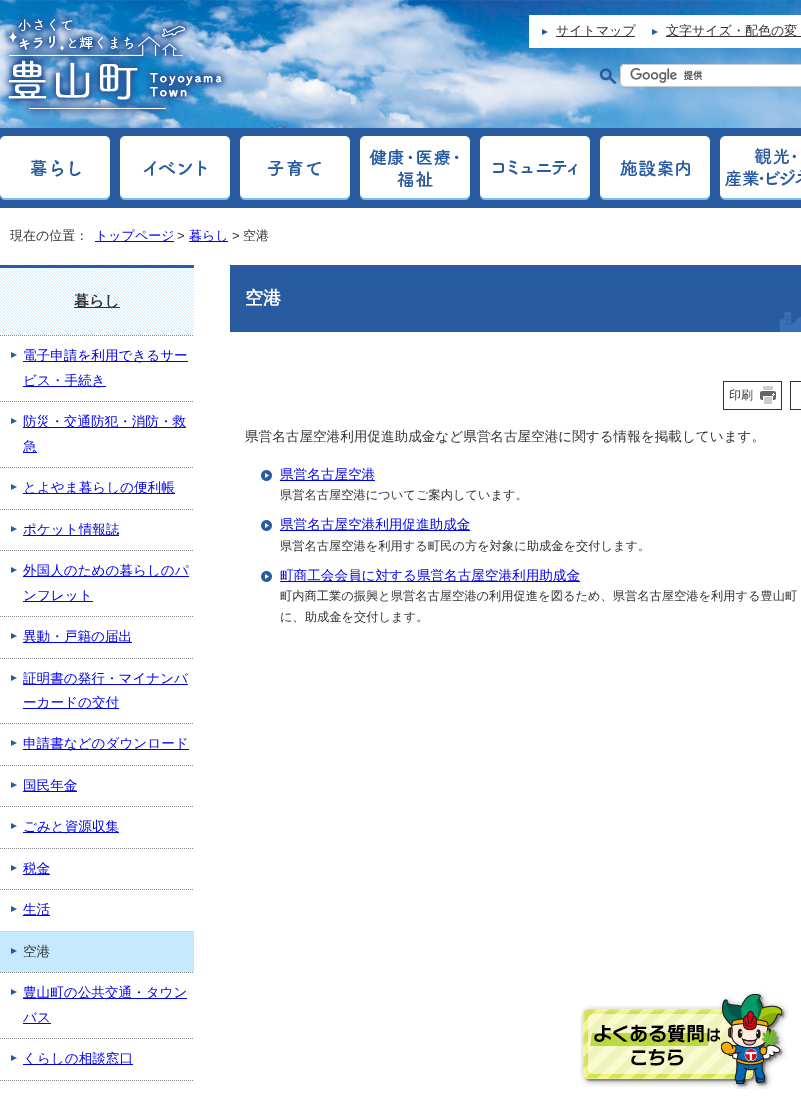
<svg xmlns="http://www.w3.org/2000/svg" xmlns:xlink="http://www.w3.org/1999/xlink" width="801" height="1097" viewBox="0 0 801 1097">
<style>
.cls-1{font:500 13px WenQuanYi Zen Hei;fill:#333333}
.cls-2{font:500 13px WenQuanYi Zen Hei;fill:#0000ee}
.cls-3{font:13px Liberation Sans;fill:#333333}
.cls-4{font:bold 15px WenQuanYi Zen Hei;fill:#333333}
.cls-5{font:500 13.6px WenQuanYi Zen Hei;fill:#0000ee}
.cls-6{font:500 13.6px WenQuanYi Zen Hei;fill:#333333}
.cls-7{font:bold 18px WenQuanYi Zen Hei;fill:#ffffff}
.cls-8{font:500 12px WenQuanYi Zen Hei;fill:#333333}
.cls-9{font:500 12.25px WenQuanYi Zen Hei;fill:#333333}
</style>
<rect width="100%" height="100%" fill="#ffffff"/>
<image xlink:href="image0.png" x="0" y="0" width="801" height="128"/>
<image xlink:href="image1.png" x="1" y="14" width="228" height="104"/>
<rect fill="#ffffff" x="529" y="15" width="272" height="33"/>
<image xlink:href="image2.png" x="542" y="29" width="6" height="6"/>
<rect fill="#333333" x="556" y="36" width="79" height="1"/>
<image xlink:href="image2.png" x="652" y="29" width="6" height="6"/>
<rect fill="#333333" x="666" y="36" width="135" height="1"/>
<image xlink:href="image3.png" x="599" y="68" width="18" height="16"/>
<path fill="#ffffff" d="M625 64H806V87H625C622 87 620 85 620 82V69C620 66 622 64 625 64Z"/>
<image xlink:href="image4.png" x="630" y="68" width="73" height="15"/>
<path fill="#cccccc" fill-rule="evenodd" d="M625 64H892V87H625C619 87 620 80 620 76C620 72 619 64 625 64ZM625 65H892V86H625C620 86 621 79 621 76C621 72 620 65 625 65Z"/>
<rect fill="#285ba0" x="0" y="128" width="801" height="80"/>
<image xlink:href="image5.png" x="0" y="136" width="110" height="64"/>
<image xlink:href="image6.png" x="120" y="136" width="110" height="64"/>
<image xlink:href="image7.png" x="240" y="136" width="110" height="64"/>
<image xlink:href="image8.png" x="360" y="136" width="110" height="64"/>
<image xlink:href="image9.png" x="480" y="136" width="110" height="64"/>
<image xlink:href="image10.png" x="600" y="136" width="110" height="64"/>
<image xlink:href="image11.png" x="720" y="136" width="81" height="64"/>
<rect fill="#0000ee" x="95" y="241" width="79" height="1"/>
<rect fill="#0000ee" x="189" y="241" width="39" height="1"/>
<rect fill="#c7e9ff" x="0" y="268" width="194" height="67"/>
<image xlink:href="image12.png" x="0" y="268" width="194" height="67"/>
<rect fill="#285ba0" x="0" y="265" width="194" height="3"/>
<rect fill="#333333" x="74" y="307" width="46" height="1"/>
<image xlink:href="image13.png" x="11" y="352" width="6" height="6"/>
<path fill="none" stroke="#888888" stroke-dasharray="1 1" d="M0 335.5H194"/>
<rect fill="#0000ee" x="23" y="361" width="165" height="1"/>
<rect fill="#0000ee" x="23" y="386" width="83" height="1"/>
<image xlink:href="image13.png" x="11" y="418" width="6" height="6"/>
<path fill="none" stroke="#888888" stroke-dasharray="1 1" d="M0 401.5H194"/>
<rect fill="#0000ee" x="23" y="427" width="163" height="1"/>
<rect fill="#0000ee" x="23" y="452" width="14" height="1"/>
<image xlink:href="image13.png" x="11" y="484" width="6" height="6"/>
<path fill="none" stroke="#888888" stroke-dasharray="1 1" d="M0 467.5H194"/>
<rect fill="#0000ee" x="23" y="493" width="152" height="1"/>
<image xlink:href="image13.png" x="11" y="526" width="6" height="6"/>
<path fill="none" stroke="#888888" stroke-dasharray="1 1" d="M0 509.5H194"/>
<rect fill="#0000ee" x="23" y="535" width="96" height="1"/>
<image xlink:href="image13.png" x="11" y="567" width="6" height="6"/>
<path fill="none" stroke="#888888" stroke-dasharray="1 1" d="M0 550.5H194"/>
<rect fill="#0000ee" x="23" y="576" width="166" height="1"/>
<rect fill="#0000ee" x="23" y="601" width="70" height="1"/>
<image xlink:href="image13.png" x="11" y="633" width="6" height="6"/>
<path fill="none" stroke="#888888" stroke-dasharray="1 1" d="M0 616.5H194"/>
<rect fill="#0000ee" x="23" y="642" width="109" height="1"/>
<image xlink:href="image13.png" x="11" y="675" width="6" height="6"/>
<path fill="none" stroke="#888888" stroke-dasharray="1 1" d="M0 658.5H194"/>
<rect fill="#0000ee" x="23" y="684" width="165" height="1"/>
<rect fill="#0000ee" x="23" y="708" width="96" height="1"/>
<image xlink:href="image13.png" x="11" y="740" width="6" height="6"/>
<path fill="none" stroke="#888888" stroke-dasharray="1 1" d="M0 723.5H194"/>
<rect fill="#0000ee" x="23" y="749" width="166" height="1"/>
<image xlink:href="image13.png" x="11" y="782" width="6" height="6"/>
<path fill="none" stroke="#888888" stroke-dasharray="1 1" d="M0 765.5H194"/>
<rect fill="#0000ee" x="23" y="791" width="54" height="1"/>
<image xlink:href="image13.png" x="11" y="823" width="6" height="6"/>
<path fill="none" stroke="#888888" stroke-dasharray="1 1" d="M0 806.5H194"/>
<rect fill="#0000ee" x="23" y="832" width="96" height="1"/>
<image xlink:href="image13.png" x="11" y="865" width="6" height="6"/>
<path fill="none" stroke="#888888" stroke-dasharray="1 1" d="M0 848.5H194"/>
<rect fill="#0000ee" x="23" y="874" width="27" height="1"/>
<image xlink:href="image13.png" x="11" y="906" width="6" height="6"/>
<path fill="none" stroke="#888888" stroke-dasharray="1 1" d="M0 889.5H194"/>
<rect fill="#0000ee" x="23" y="915" width="27" height="1"/>
<rect fill="#c7e9ff" x="0" y="931" width="194" height="41"/>
<image xlink:href="image14.png" x="11" y="948" width="6" height="6"/>
<path fill="none" stroke="#cccccc" stroke-dasharray="1 1" d="M0 931.5H194"/>
<image xlink:href="image13.png" x="11" y="989" width="6" height="6"/>
<path fill="none" stroke="#888888" stroke-dasharray="1 1" d="M0 972.5H194"/>
<rect fill="#0000ee" x="23" y="998" width="164" height="1"/>
<rect fill="#0000ee" x="23" y="1023" width="28" height="1"/>
<image xlink:href="image13.png" x="11" y="1055" width="6" height="6"/>
<path fill="none" stroke="#888888" stroke-dasharray="1 1" d="M0 1038.5H194"/>
<rect fill="#0000ee" x="23" y="1064" width="110" height="1"/>
<path fill="none" stroke="#888888" stroke-dasharray="1 1" d="M0 1080.5H194"/>
<rect fill="#285ba0" x="230" y="265" width="571" height="67"/>
<image xlink:href="image15.png" x="779" y="311" width="22" height="21"/>
<rect fill="none" stroke="#333333" x="723.5" y="381.5" width="58" height="28"/>
<image xlink:href="image16.png" x="760" y="386" width="16" height="18"/>
<rect fill="none" stroke="#333333" x="790.5" y="381.5" width="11" height="28"/>
<image xlink:href="image17.png" x="261" y="470" width="11" height="11"/>
<rect fill="#0000ee" x="280" y="480" width="95" height="1"/>
<image xlink:href="image17.png" x="261" y="520" width="11" height="11"/>
<rect fill="#0000ee" x="280" y="530" width="190" height="1"/>
<image xlink:href="image17.png" x="261" y="571" width="11" height="11"/>
<rect fill="#0000ee" x="280" y="581" width="300" height="1"/>
<image xlink:href="image18.png" x="580" y="991" width="209" height="98"/>
<text class="cls-1" x="556" y="35">サイトマップ</text>
<text class="cls-1" x="666" y="35">文字サイズ・配色の変</text>
<text class="cls-1" x="10" y="240">現在の位置：</text>
<text class="cls-2" x="95" y="240">トップページ</text>
<text class="cls-3" x="177" y="240">&gt;</text>
<text class="cls-2" x="189" y="240">暮らし</text>
<text class="cls-3" x="232" y="240">&gt;</text>
<text class="cls-1" x="243" y="240">空港</text>
<text class="cls-4" x="74" y="306">暮らし</text>
<text class="cls-5"><tspan x="23" y="360">電子申請を利用できるサー</tspan><tspan x="23" y="385">ビス・手続き</tspan></text>
<text class="cls-5"><tspan x="23" y="426">防災・交通防犯・消防・救</tspan><tspan x="23" y="451">急</tspan></text>
<text class="cls-5" x="23" y="492">とよやま暮らしの便利帳</text>
<text class="cls-5" x="23" y="534">ポケット情報誌</text>
<text class="cls-5"><tspan x="23" y="575">外国人のための暮らしのパ</tspan><tspan x="23" y="600">ンフレット</tspan></text>
<text class="cls-5" x="23" y="641">異動・戸籍の届出</text>
<text class="cls-5"><tspan x="23" y="683">証明書の発行・マイナンバ</tspan><tspan x="23" y="707">ーカードの交付</tspan></text>
<text class="cls-5" x="23" y="748">申請書などのダウンロード</text>
<text class="cls-5" x="23" y="790">国民年金</text>
<text class="cls-5" x="23" y="831">ごみと資源収集</text>
<text class="cls-5" x="23" y="873">税金</text>
<text class="cls-5" x="23" y="914">生活</text>
<text class="cls-6" x="23" y="956">空港</text>
<text class="cls-5"><tspan x="23" y="997">豊山町の公共交通・タウン</tspan><tspan x="23" y="1022">バス</tspan></text>
<text class="cls-5" x="23" y="1063">くらしの相談窓口</text>
<text class="cls-7" x="245" y="304">空港</text>
<text class="cls-8" x="729" y="399">印刷</text>
<text class="cls-6" x="245" y="441">県営名古屋空港利用促進助成金など県営名古屋空港に関する情報を掲載しています。</text>
<text class="cls-5" x="280" y="479">県営名古屋空港</text>
<text class="cls-9" x="280" y="499">県営名古屋空港についてご案内しています。</text>
<text class="cls-5" x="280" y="529">県営名古屋空港利用促進助成金</text>
<text class="cls-9" x="280" y="550">県営名古屋空港を利用する町民の方を対象に助成金を交付します。</text>
<text class="cls-5" x="280" y="580">町商工会会員に対する県営名古屋空港利用助成金</text>
<text class="cls-9"><tspan x="280" y="600">町内商工業の振興と県営名古屋空港の利用促進を図るため、県営名古屋空港を利用する豊山町</tspan><tspan x="280" y="621">に、助成金を交付します。</tspan></text>
</svg>
